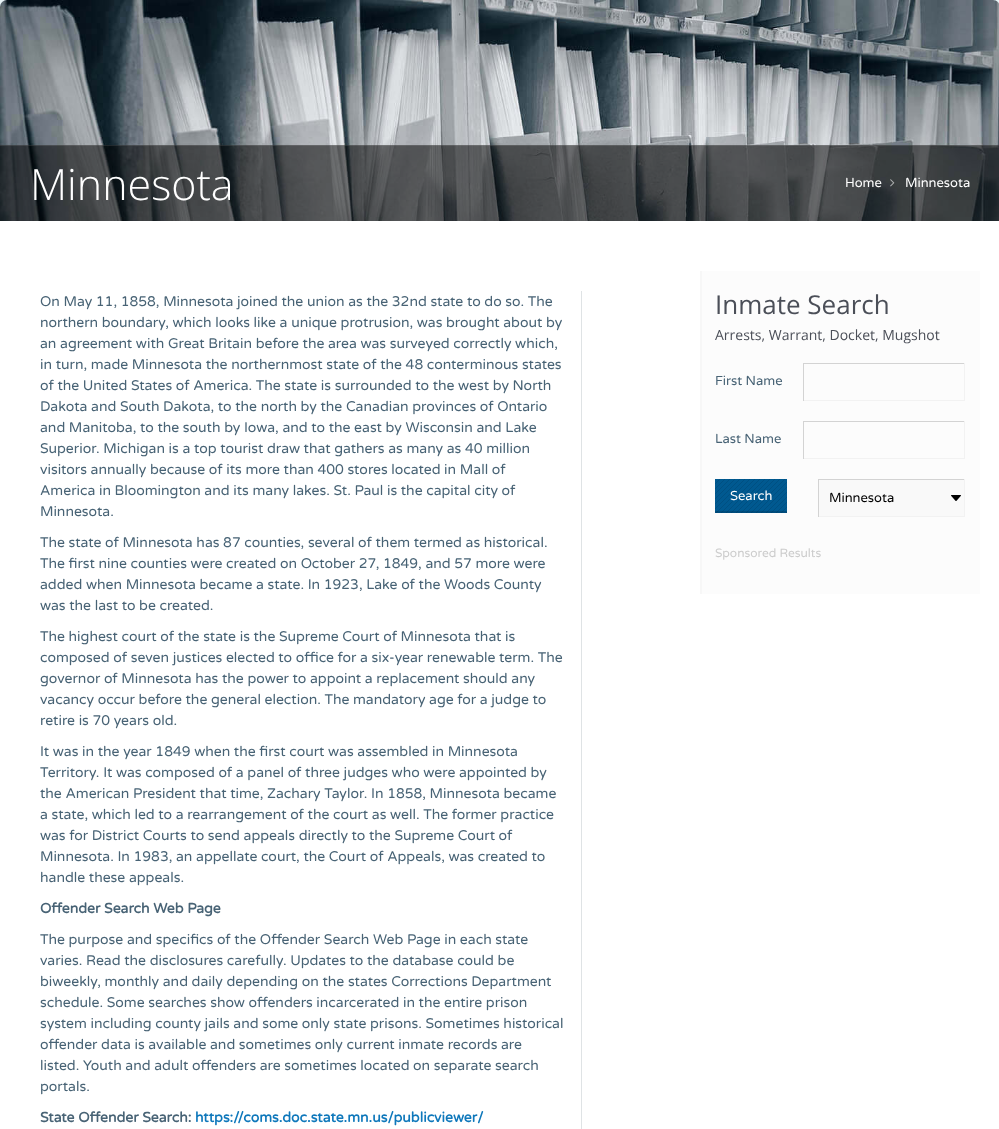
<svg xmlns="http://www.w3.org/2000/svg" xmlns:xlink="http://www.w3.org/1999/xlink" width="999" height="1129" viewBox="0 0 999 1129">
<style>
.cls-1{font:300 43px Open Sans;fill:#ffffff}
.cls-2{font:13px Varela Round;fill:#ffffff}
.cls-3{font:14px Varela Round;fill:#486375}
.cls-4{font:bold 14px Varela Round;fill:#486375}
.cls-5{font:bold 14px Varela Round;fill:#0f78bb}
.cls-6{font:26px Open Sans;fill:#4b4f58}
.cls-7{font:14px Open Sans;fill:#4b4f58}
.cls-8{font:13px Varela Round;fill:#486375}
.cls-9{font:13px Varela Round;fill:#000000}
.cls-10{font:12px Varela Round;fill:#cccccc}
</style>
<rect width="100%" height="100%" fill="#e8f4f7"/>
<image xlink:href="image0.png" x="0" y="0" width="999" height="221"/>
<rect fill="#000000" fill-opacity="0.53" x="0" y="145" width="999" height="76"/>
<rect fill="#ffffff" fill-opacity="0.1" x="0" y="145" width="999" height="1"/>
<image xlink:href="image1.png" x="890" y="179" width="5" height="8"/>
<rect fill="#ffffff" x="0" y="221" width="999" height="908"/>
<rect fill="#dfe3e5" x="581" y="291" width="1" height="838"/>
<rect fill="#fcfcfc" x="702" y="271" width="278" height="323"/>
<rect fill="#f7f7f7" x="700" y="271" width="2" height="323"/>
<rect fill="#d3d3d3" x="803" y="363" width="162" height="1"/>
<rect fill="#f2f2f2" x="964" y="363" width="1" height="38"/>
<rect fill="#f2f2f2" x="803" y="400" width="162" height="1"/>
<rect fill="#d3d3d3" x="803" y="363" width="1" height="38"/>
<rect fill="#d3d3d3" x="803" y="421" width="162" height="1"/>
<rect fill="#f2f2f2" x="964" y="421" width="1" height="38"/>
<rect fill="#f2f2f2" x="803" y="458" width="162" height="1"/>
<rect fill="#d3d3d3" x="803" y="421" width="1" height="38"/>
<rect fill="#005990" x="715" y="479" width="72" height="34"/>
<image xlink:href="image2.png" x="715" y="479" width="72" height="34"/>
<rect fill="#000000" fill-opacity="0.13" x="715" y="511" width="72" height="2"/>
<rect fill="#f9f9f9" x="819" y="480" width="145" height="36"/>
<image xlink:href="image3.png" x="951" y="495" width="10" height="6"/>
<rect fill="#d3d3d3" x="818" y="479" width="147" height="1"/>
<rect fill="#f2f2f2" x="964" y="479" width="1" height="38"/>
<rect fill="#f2f2f2" x="818" y="516" width="147" height="1"/>
<rect fill="#d3d3d3" x="818" y="479" width="1" height="38"/>
<text class="cls-1" x="30" y="200">Minnesota</text>
<text class="cls-2" x="845" y="187">Home</text>
<text class="cls-2" x="905" y="187">Minnesota</text>
<text class="cls-3"><tspan x="40" y="306">On May 11, 1858, Minnesota joined the union as the 32nd state to do so. The</tspan><tspan x="40" y="327">northern boundary, which looks like a unique protrusion, was brought about by</tspan><tspan x="40" y="348">an agreement with Great Britain before the area was surveyed correctly which,</tspan><tspan x="40" y="369">in turn, made Minnesota the northernmost state of the 48 conterminous states</tspan><tspan x="40" y="390">of the United States of America. The state is surrounded to the west by North</tspan><tspan x="40" y="411">Dakota and South Dakota, to the north by the Canadian provinces of Ontario</tspan><tspan x="40" y="432">and Manitoba, to the south by Iowa, and to the east by Wisconsin and Lake</tspan><tspan x="40" y="453">Superior. Michigan is a top tourist draw that gathers as many as 40 million</tspan><tspan x="40" y="474">visitors annually because of its more than 400 stores located in Mall of</tspan><tspan x="40" y="495">America in Bloomington and its many lakes. St. Paul is the capital city of</tspan><tspan x="40" y="516">Minnesota.</tspan></text>
<text class="cls-3"><tspan x="40" y="547">The state of Minnesota has 87 counties, several of them termed as historical.</tspan><tspan x="40" y="568">The first nine counties were created on October 27, 1849, and 57 more were</tspan><tspan x="40" y="589">added when Minnesota became a state. In 1923, Lake of the Woods County</tspan><tspan x="40" y="610">was the last to be created.</tspan></text>
<text class="cls-3"><tspan x="40" y="641">The highest court of the state is the Supreme Court of Minnesota that is</tspan><tspan x="40" y="662">composed of seven justices elected to office for a six-year renewable term. The</tspan><tspan x="40" y="683">governor of Minnesota has the power to appoint a replacement should any</tspan><tspan x="40" y="704">vacancy occur before the general election. The mandatory age for a judge to</tspan><tspan x="40" y="725">retire is 70 years old.</tspan></text>
<text class="cls-3"><tspan x="40" y="756">It was in the year 1849 when the first court was assembled in Minnesota</tspan><tspan x="40" y="777">Territory. It was composed of a panel of three judges who were appointed by</tspan><tspan x="40" y="798">the American President that time, Zachary Taylor. In 1858, Minnesota became</tspan><tspan x="40" y="819">a state, which led to a rearrangement of the court as well. The former practice</tspan><tspan x="40" y="840">was for District Courts to send appeals directly to the Supreme Court of</tspan><tspan x="40" y="861">Minnesota. In 1983, an appellate court, the Court of Appeals, was created to</tspan><tspan x="40" y="882">handle these appeals.</tspan></text>
<text class="cls-4" x="40" y="913">Offender Search Web Page</text>
<text class="cls-3"><tspan x="40" y="944">The purpose and specifics of the Offender Search Web Page in each state</tspan><tspan x="40" y="965">varies. Read the disclosures carefully. Updates to the database could be</tspan><tspan x="40" y="986">biweekly, monthly and daily depending on the states Corrections Department</tspan><tspan x="40" y="1007">schedule. Some searches show offenders incarcerated in the entire prison</tspan><tspan x="40" y="1028">system including county jails and some only state prisons. Sometimes historical</tspan><tspan x="40" y="1049">offender data is available and sometimes only current inmate records are</tspan><tspan x="40" y="1070">listed. Youth and adult offenders are sometimes located on separate search</tspan><tspan x="40" y="1091">portals.</tspan></text>
<text class="cls-4" x="40" y="1122">State Offender Search:</text>
<text class="cls-5" x="195" y="1122">https://coms.doc.state.mn.us/publicviewer/</text>
<text class="cls-6" x="715" y="314">Inmate Search</text>
<text class="cls-7" x="715" y="340">Arrests, Warrant, Docket, Mugshot</text>
<text class="cls-8" x="715" y="385">First Name</text>
<text class="cls-8" x="715" y="443">Last Name</text>
<text class="cls-2" x="730" y="500">Search</text>
<text class="cls-9" x="829" y="502">Minnesota</text>
<text class="cls-10" x="715" y="557">Sponsored Results</text>
</svg>
